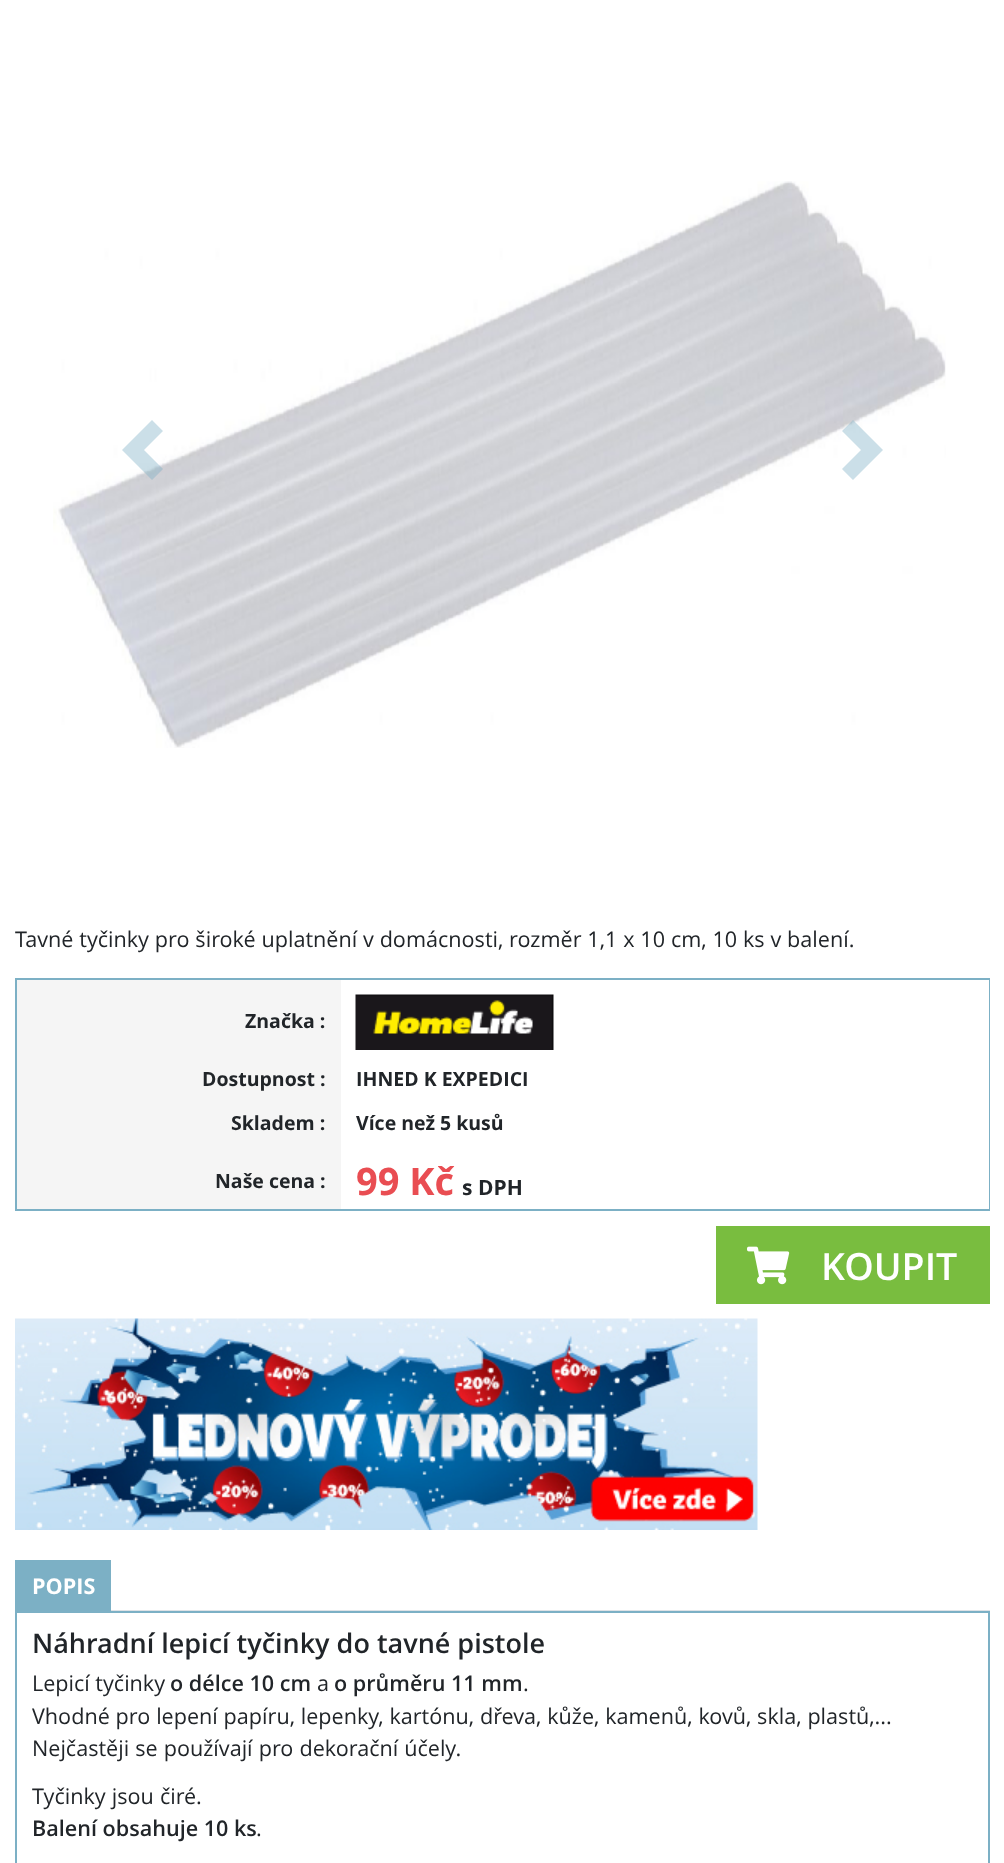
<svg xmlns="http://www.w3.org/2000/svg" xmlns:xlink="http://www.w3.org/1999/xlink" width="1004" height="1863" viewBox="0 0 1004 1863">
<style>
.cls-1{font:21.6px Open Sans;fill:#212529}
.cls-2{font:bold 19.5px Open Sans;fill:#212529}
.cls-3{font:bold 38px Open Sans;fill:#e94d52}
.cls-4{font:bold 21px Open Sans;fill:#212529}
.cls-5{font:600 37.5px Open Sans;fill:#ffffff}
.cls-6{font:bold 21.6px Open Sans;fill:#ffffff}
.cls-7{font:600 27px Open Sans;fill:#212529}
.cls-8{font:600 21.6px Open Sans;fill:#212529}
</style>
<rect width="100%" height="100%" fill="#ffffff"/>
<image xlink:href="image0.png" x="53" y="181" width="893" height="567"/>
<path fill="#7cb0c5" fill-opacity="0.4" d="M152 420L122 450L152 480L163 469L144 450L163 431Z"/>
<path fill="#7cb0c5" fill-opacity="0.4" d="M853 420L842 431L861 450L842 469L853 480L883 450Z"/>
<rect fill="#f5f5f5" x="17" y="980" width="324" height="229"/>
<rect fill="none" stroke="#7cb0c5" stroke-width="2" x="16" y="979" width="973" height="231"/>
<rect fill="#ffffff" x="988" y="980" width="1" height="229"/>
<image xlink:href="image1.png" x="355" y="994" width="199" height="56"/>
<rect fill="#79bd3f" x="716" y="1226" width="274" height="78"/>
<image xlink:href="image2.png" x="747" y="1246" width="43" height="39"/>
<image xlink:href="image3.png" x="15" y="1318" width="743" height="212"/>
<rect fill="#dee2e6" x="111" y="1610" width="879" height="1"/>
<rect fill="#7cb0c5" x="15" y="1560" width="96" height="51"/>
<rect fill="none" stroke="#7cb0c5" stroke-width="2" x="16" y="1612" width="973" height="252"/>
<text class="cls-1" x="15" y="947" word-spacing="0.25">Tavné tyčinky pro široké uplatnění v domácnosti, rozměr 1,1 x 10 cm, 10 ks v balení.</text>
<text class="cls-2" x="245" y="1028">Značka :</text>
<text class="cls-2" x="202" y="1086">Dostupnost :</text>
<text class="cls-2" x="356" y="1086">IHNED K EXPEDICI</text>
<text class="cls-2" x="231" y="1130">Skladem :</text>
<text class="cls-2" x="356" y="1130">Více než 5 kusů</text>
<text class="cls-2" x="215" y="1188">Naše cena :</text>
<text class="cls-3" x="356" y="1195">99 Kč</text>
<text class="cls-4" x="462" y="1195">s DPH</text>
<text class="cls-5" x="821" y="1280">KOUPIT</text>
<text class="cls-6" x="32" y="1594">POPIS</text>
<text class="cls-7" x="32" y="1653">Náhradní lepicí tyčinky do tavné pistole</text>
<text class="cls-1" x="32" y="1691">Lepicí tyčinky</text>
<text class="cls-8" x="170" y="1691">o délce 10 cm</text>
<text class="cls-1" x="317" y="1691">a</text>
<text class="cls-8" x="334" y="1691">o průměru 11 mm</text>
<text class="cls-1" x="523" y="1691">.</text>
<text class="cls-1"><tspan x="32" y="1724" word-spacing="0.25">Vhodné pro lepení papíru, lepenky, kartónu, dřeva, kůže, kamenů, kovů, skla, plastů,...</tspan><tspan x="32" y="1756" word-spacing="0.5">Nejčastěji se používají pro dekorační účely.</tspan></text>
<text class="cls-1" x="32" y="1804" word-spacing="0.5">Tyčinky jsou čiré.</text>
<text class="cls-8" x="32" y="1836">Balení obsahuje 10 ks</text>
<text class="cls-1" x="256" y="1836">.</text>
</svg>
